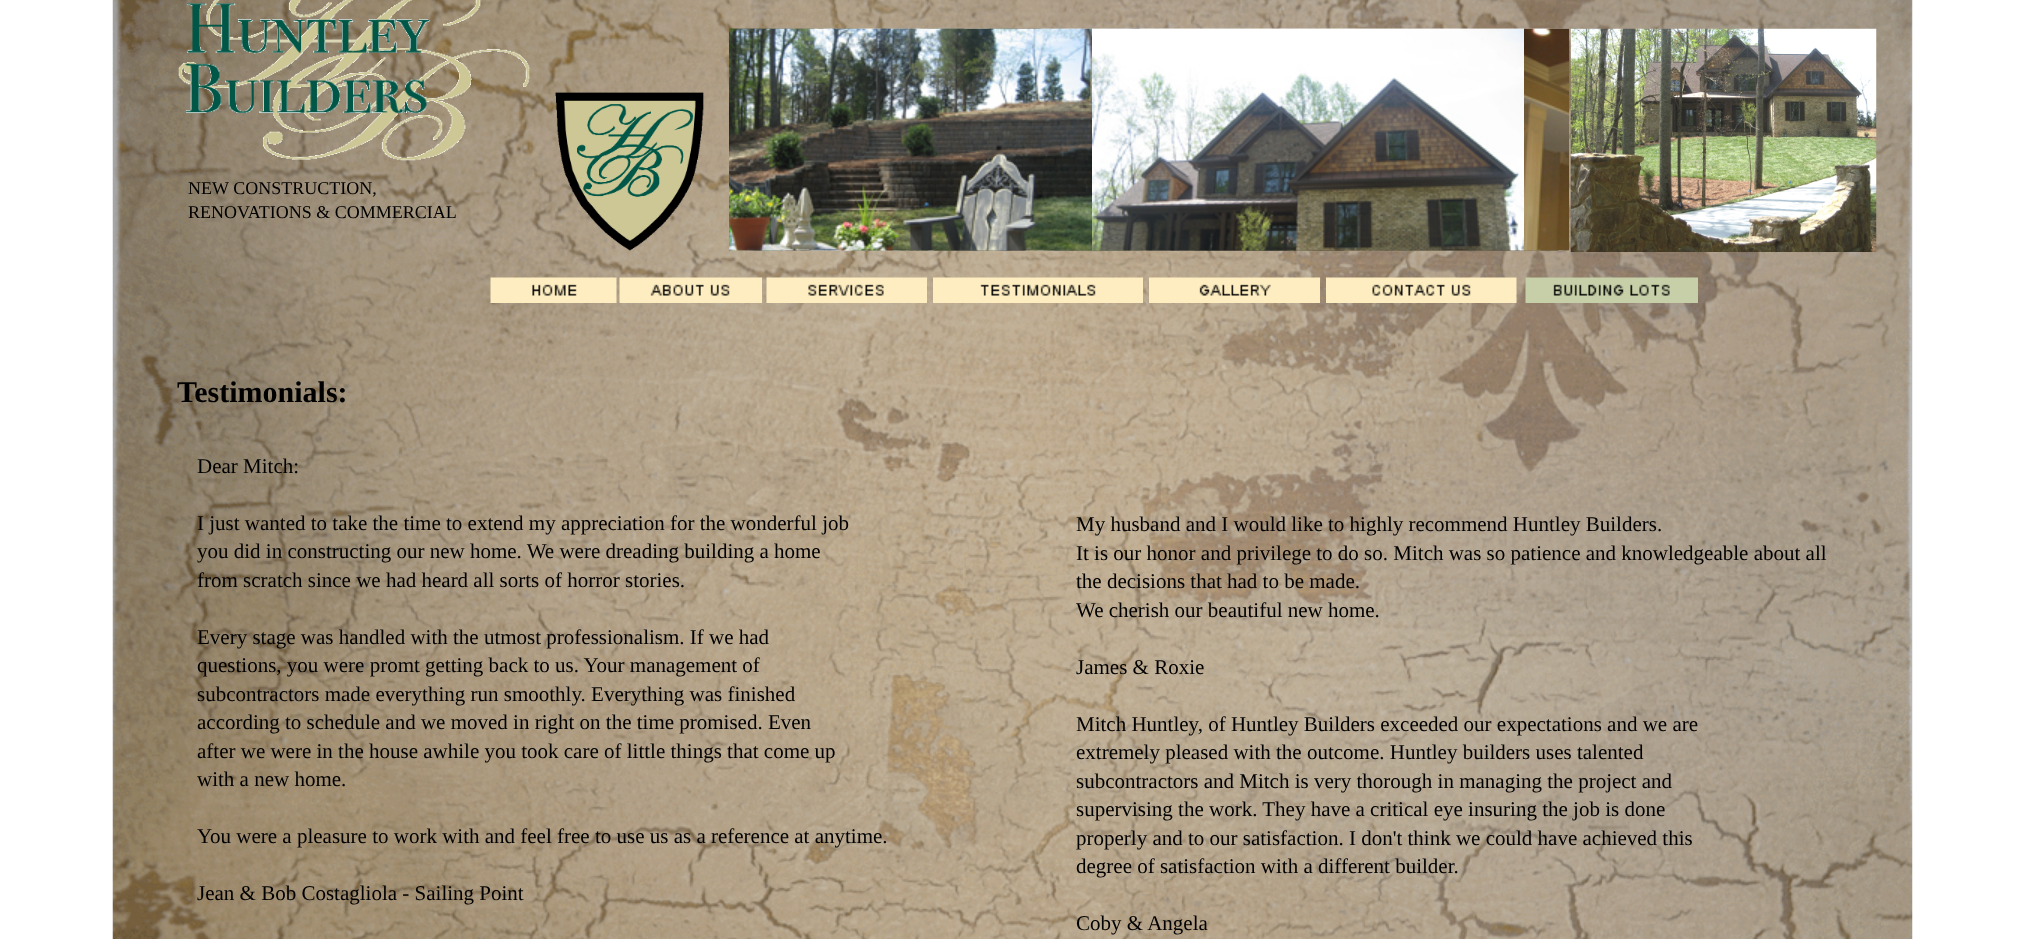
<svg xmlns="http://www.w3.org/2000/svg" xmlns:xlink="http://www.w3.org/1999/xlink" width="2025" height="939" viewBox="0 0 2025 939">
<style>
.cls-1{font:18px Liberation Serif;fill:#000000}
.cls-2{font:bold 30px Liberation Serif;fill:#000000}
.cls-3{font:21px Liberation Serif;fill:#000000}
</style>
<rect width="100%" height="100%" fill="#ffffff"/>
<image xlink:href="image0.png" x="112" y="0" width="1801" height="939"/>
<image xlink:href="image1.png" x="178" y="0" width="352" height="161"/>
<image xlink:href="image2.png" x="555" y="92" width="149" height="159"/>
<image xlink:href="image3.png" x="729" y="28" width="411" height="223"/>
<image xlink:href="image4.png" x="1140" y="28" width="429" height="223"/>
<image xlink:href="image5.png" x="729" y="28" width="363" height="223"/>
<image xlink:href="image6.png" x="1092" y="28" width="432" height="223"/>
<image xlink:href="image7.png" x="1524" y="28" width="45" height="223"/>
<image xlink:href="image8.png" x="1570" y="28" width="307" height="224"/>
<image xlink:href="image9.png" x="490" y="277" width="127" height="26"/>
<image xlink:href="image10.png" x="619" y="277" width="143" height="26"/>
<image xlink:href="image11.png" x="766" y="277" width="161" height="26"/>
<image xlink:href="image12.png" x="933" y="277" width="210" height="26"/>
<image xlink:href="image13.png" x="1149" y="277" width="171" height="26"/>
<image xlink:href="image14.png" x="1326" y="277" width="191" height="26"/>
<image xlink:href="image15.png" x="1525" y="277" width="173" height="26"/>
<text class="cls-1"><tspan x="188" y="194">NEW CONSTRUCTION,</tspan><tspan x="188" y="218">RENOVATIONS &amp; COMMERCIAL</tspan></text>
<text class="cls-2" x="177" y="402">Testimonials:</text>
<text class="cls-3" x="197" y="473">Dear Mitch:</text>
<text class="cls-3"><tspan x="197" y="530">I just wanted to take the time to extend my appreciation for the wonderful job</tspan><tspan x="197" y="558">you did in constructing our new home. We were dreading building a home</tspan><tspan x="197" y="587">from scratch since we had heard all sorts of horror stories.</tspan></text>
<text class="cls-3"><tspan x="197" y="644">Every stage was handled with the utmost professionalism. If we had</tspan><tspan x="197" y="672">questions, you were promt getting back to us. Your management of</tspan><tspan x="197" y="701">subcontractors made everything run smoothly. Everything was finished</tspan><tspan x="197" y="729">according to schedule and we moved in right on the time promised. Even</tspan><tspan x="197" y="758">after we were in the house awhile you took care of little things that come up</tspan><tspan x="197" y="786">with a new home.</tspan></text>
<text class="cls-3" x="197" y="843">You were a pleasure to work with and feel free to use us as a reference at anytime.</text>
<text class="cls-3" x="197" y="900">Jean &amp; Bob Costagliola - Sailing Point</text>
<text class="cls-3"><tspan x="1076" y="531">My husband and I would like to highly recommend Huntley Builders.</tspan><tspan x="1076" y="560">It is our honor and privilege to do so. Mitch was so patience and knowledgeable about all</tspan><tspan x="1076" y="588">the decisions that had to be made.</tspan><tspan x="1076" y="617">We cherish our beautiful new home.</tspan></text>
<text class="cls-3" x="1076" y="674">James &amp; Roxie</text>
<text class="cls-3"><tspan x="1076" y="731">Mitch Huntley, of Huntley Builders exceeded our expectations and we are</tspan><tspan x="1076" y="759">extremely pleased with the outcome. Huntley builders uses talented</tspan><tspan x="1076" y="788">subcontractors and Mitch is very thorough in managing the project and</tspan><tspan x="1076" y="816">supervising the work. They have a critical eye insuring the job is done</tspan><tspan x="1076" y="845">properly and to our satisfaction. I don't think we could have achieved this</tspan><tspan x="1076" y="873">degree of satisfaction with a different builder.</tspan></text>
<text class="cls-3" x="1076" y="930">Coby &amp; Angela</text>
</svg>
